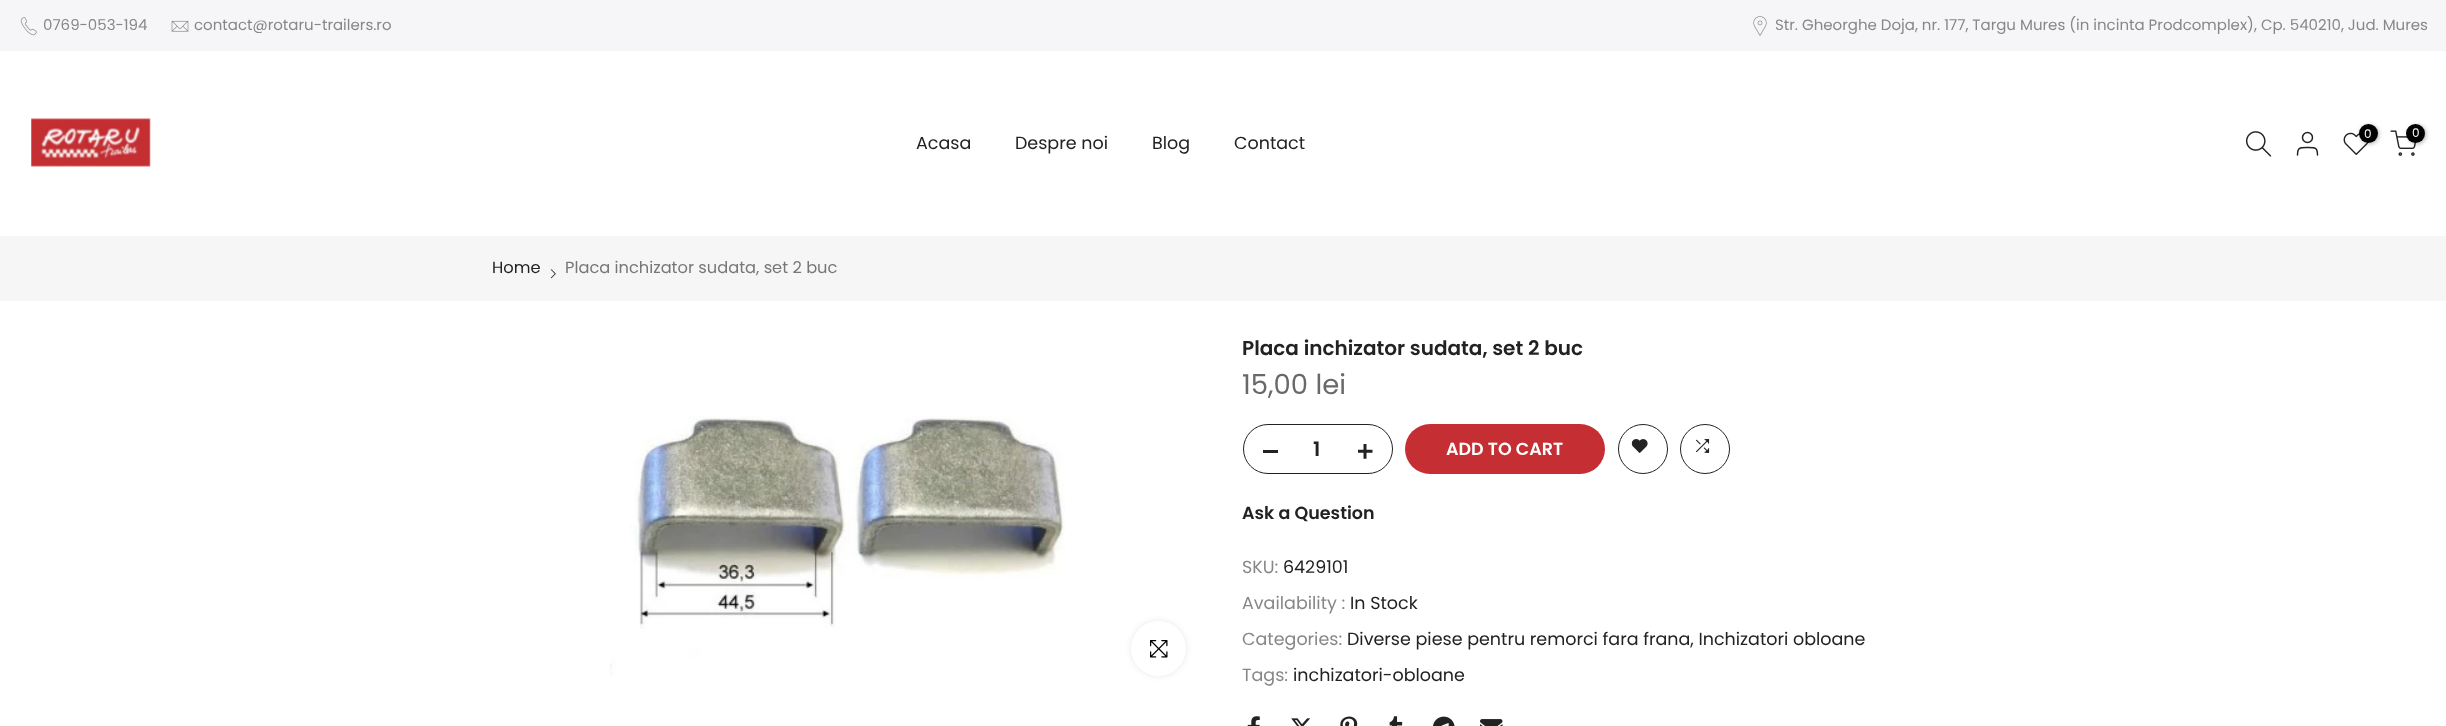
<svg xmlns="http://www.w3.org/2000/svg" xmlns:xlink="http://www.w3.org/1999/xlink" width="2446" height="726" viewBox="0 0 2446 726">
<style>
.cls-1{font:15px Poppins;fill:#878787}
.cls-2{font:12px Poppins;fill:#ffffff}
.cls-3{font:17.5px Poppins;fill:#222222}
.cls-4{font:16.25px Poppins;fill:#222222}
.cls-5{font:16.25px Poppins;fill:#777777}
.cls-6{font:600 20px Poppins;fill:#222222}
.cls-7{font:27.5px Poppins;fill:#696969}
.cls-8{font:600 17.5px Poppins;fill:#ffffff}
.cls-9{font:600 17.5px Poppins;fill:#222222}
.cls-10{font:17.5px Poppins;fill:#878787}
</style>
<rect width="100%" height="100%" fill="#ffffff"/>
<rect fill="#f6f6f8" x="0" y="0" width="2446" height="51"/>
<image xlink:href="image0.png" x="20" y="17" width="17" height="19"/>
<image xlink:href="image1.png" x="171" y="20" width="18" height="12"/>
<image xlink:href="image2.png" x="1753" y="16" width="14" height="20"/>
<image xlink:href="image3.png" x="31" y="118" width="120" height="49"/>
<image xlink:href="image4.png" x="2246" y="131" width="26" height="26"/>
<circle fill="none" stroke="#222222" stroke-width="1.5" cx="2307.5" cy="137.5" r="5"/>
<path fill="none" stroke="#222222" stroke-width="1.5" stroke-linecap="round" stroke-linejoin="round" d="M2317.5 155C2317.5 147 2314.5 147.5 2307.5 147.5C2300.5 147.5 2297.5 147 2297.5 155"/>
<image xlink:href="image5.png" x="2343" y="132" width="26" height="23"/>
<rect fill="#000000" fill-opacity="0.3" filter="blur(2px)" x="2360" y="125" width="19" height="19" rx="9.5"/>
<circle fill="#000000" cx="2368.5" cy="133.5" r="9.5"/>
<image xlink:href="image6.png" x="2390" y="130" width="26" height="26"/>
<rect fill="#000000" fill-opacity="0.3" filter="blur(2px)" x="2408" y="125" width="18" height="19" rx="9"/>
<circle fill="#000000" cx="2415.5" cy="133.5" r="9.5"/>
<rect fill="#f6f6f6" x="0" y="236" width="2446" height="65"/>
<image xlink:href="image7.png" x="550" y="269" width="6" height="10"/>
<image xlink:href="image8.png" x="610" y="416" width="455" height="261"/>
<rect fill="#000000" fill-opacity="0.09" filter="blur(3px)" x="1131" y="621" width="55" height="55" rx="27.5"/>
<circle fill="#ffffff" cx="1158.5" cy="648.5" r="27.5"/>
<image xlink:href="image9.png" x="1150" y="640" width="18" height="18"/>
<rect fill="none" stroke="#222222" x="1243.5" y="424.5" width="149" height="49" rx="24.5"/>
<rect fill="#222222" x="1263" y="450" width="15" height="3"/>
<image xlink:href="image10.png" x="1358" y="444" width="15" height="15"/>
<rect fill="#c52f33" x="1405" y="424" width="200" height="50" rx="25"/>
<circle fill="none" stroke="#222222" cx="1643" cy="449" r="24.5"/>
<image xlink:href="image11.png" x="1631" y="439" width="17" height="14"/>
<circle fill="none" stroke="#222222" cx="1705" cy="449" r="24.5"/>
<image xlink:href="image12.png" x="1696" y="439" width="14" height="14"/>
<image xlink:href="image13.png" x="1247" y="716" width="13" height="10"/>
<image xlink:href="image14.png" x="1291" y="718" width="20" height="8"/>
<image xlink:href="image15.png" x="1340" y="716" width="18" height="10"/>
<image xlink:href="image16.png" x="1389" y="716" width="14" height="10"/>
<image xlink:href="image17.png" x="1433" y="716" width="22" height="10"/>
<image xlink:href="image18.png" x="1480" y="719" width="23" height="7"/>
<text class="cls-1" x="43" y="30">0769-053-194</text>
<text class="cls-1" x="194" y="30">contact@rotaru-trailers.ro</text>
<text class="cls-1" x="1775" y="30">Str. Gheorghe Doja, nr. 177, Targu Mures (in incinta Prodcomplex), Cp. 540210, Jud. Mures</text>
<text class="cls-2" x="2364" y="138">0</text>
<text class="cls-2" x="2412" y="137">0</text>
<text class="cls-3" x="916" y="149">Acasa</text>
<text class="cls-3" x="1015" y="149">Despre noi</text>
<text class="cls-3" x="1152" y="149">Blog</text>
<text class="cls-3" x="1234" y="149">Contact</text>
<text class="cls-4" x="492" y="273">Home</text>
<text class="cls-5" x="565" y="273">Placa inchizator sudata, set 2 buc</text>
<text class="cls-6" x="1242" y="355">Placa inchizator sudata, set 2 buc</text>
<text class="cls-7" x="1242" y="394">15,00 lei</text>
<text class="cls-6" x="1313" y="456">1</text>
<text class="cls-8" x="1446" y="455">ADD TO CART</text>
<text class="cls-9" x="1242" y="519">Ask a Question</text>
<text class="cls-10" x="1242" y="573">SKU:</text>
<text class="cls-3" x="1283" y="573">6429101</text>
<text class="cls-10" x="1242" y="609">Availability :</text>
<text class="cls-3" x="1350" y="609">In Stock</text>
<text class="cls-10" x="1242" y="645">Categories:</text>
<text class="cls-3" x="1347" y="645">Diverse piese pentru remorci fara frana, Inchizatori obloane</text>
<text class="cls-10" x="1242" y="681">Tags:</text>
<text class="cls-3" x="1293" y="681">inchizatori-obloane</text>
</svg>
